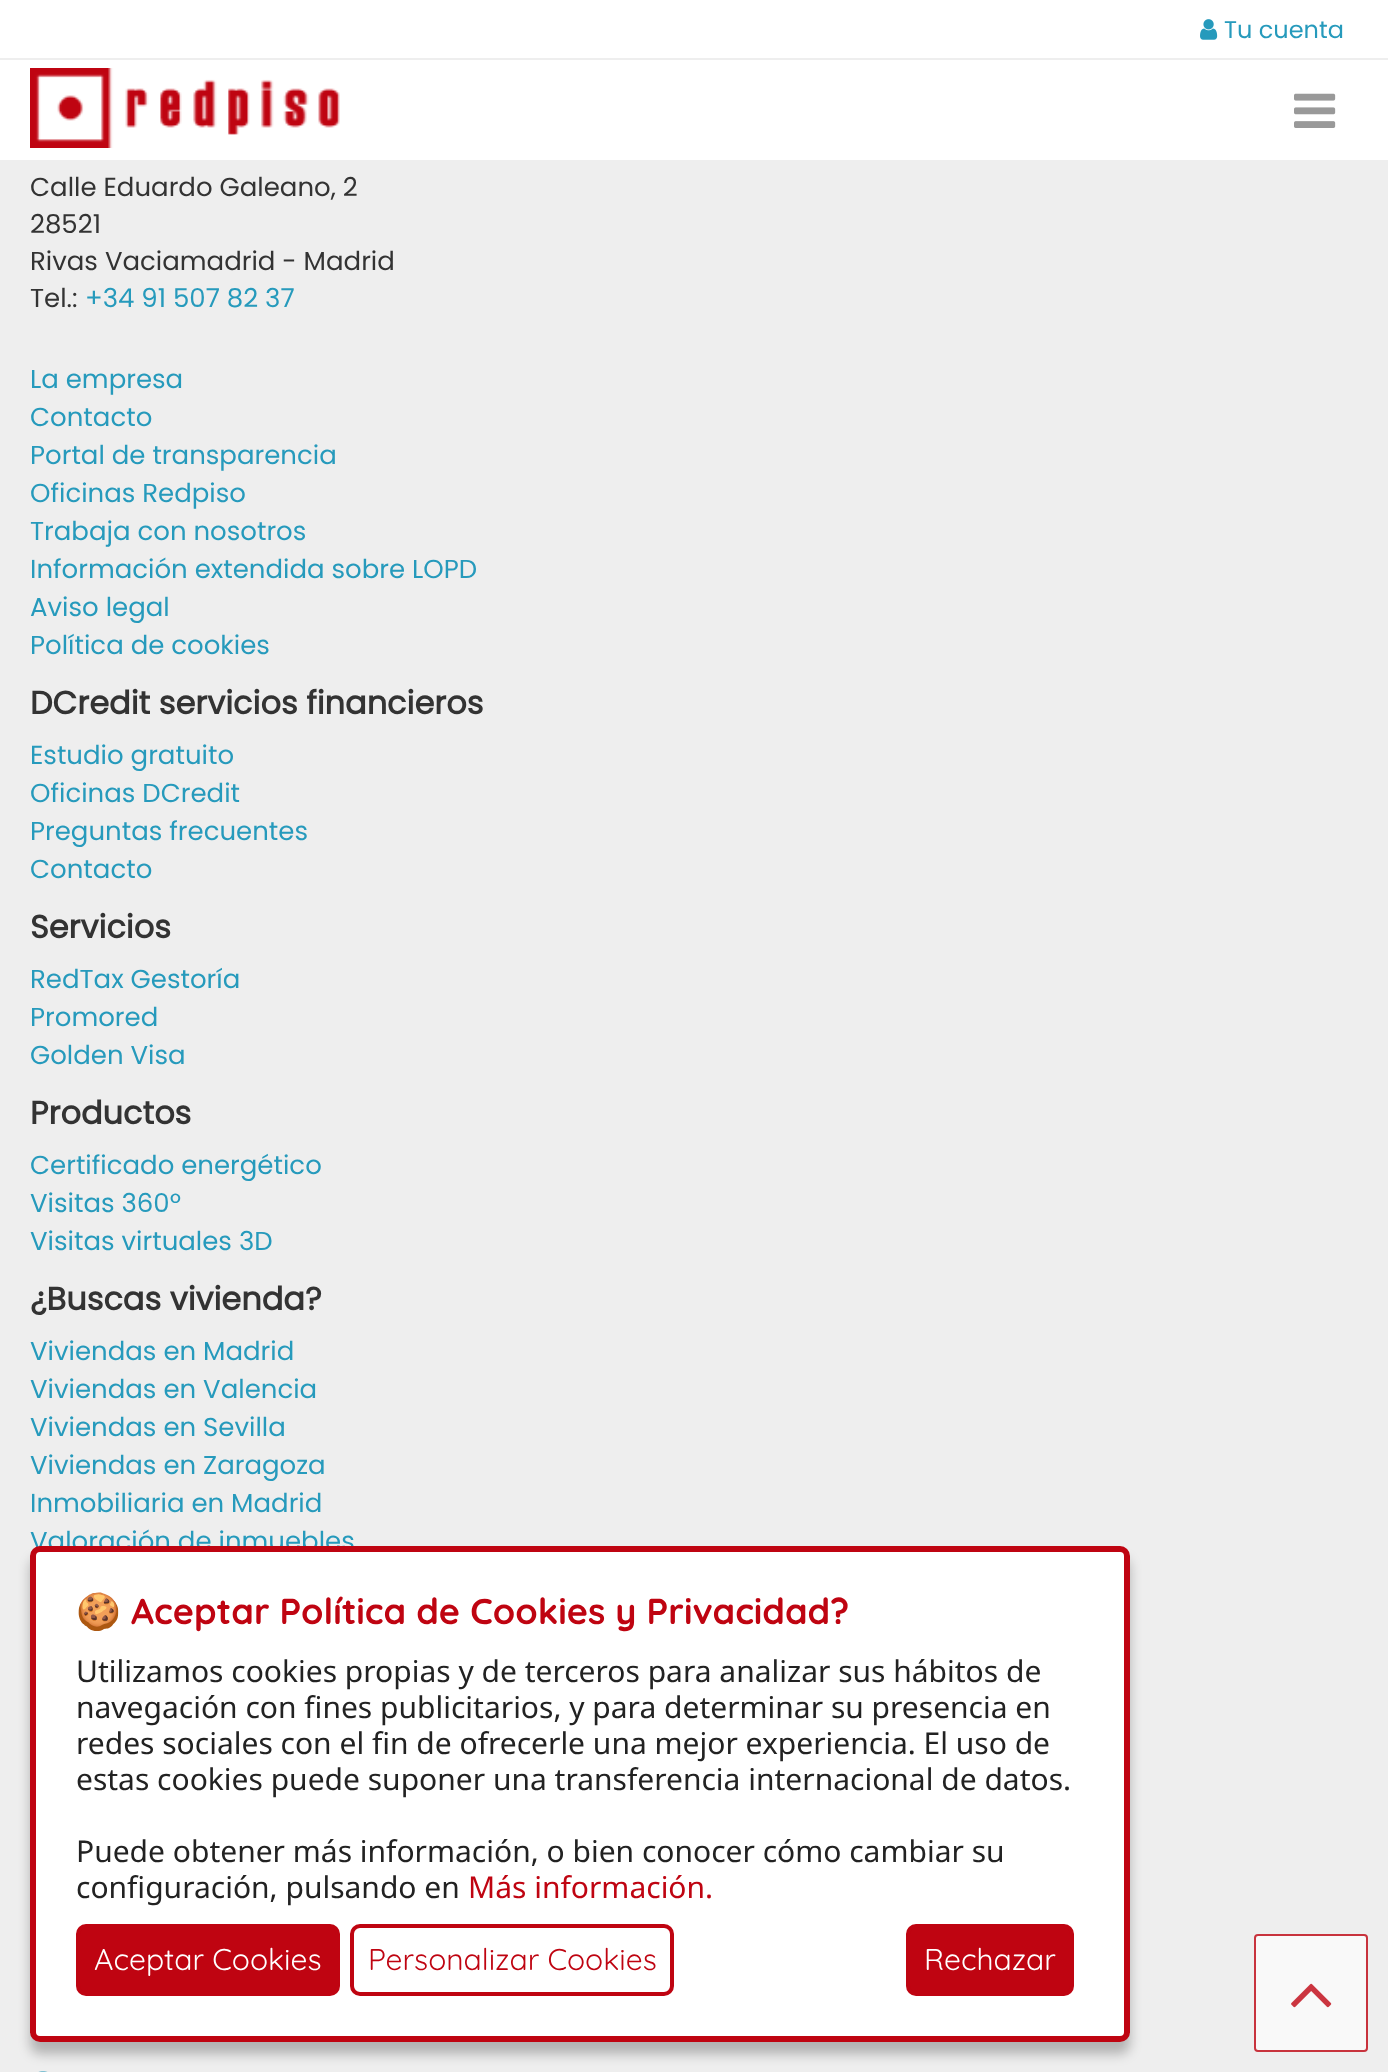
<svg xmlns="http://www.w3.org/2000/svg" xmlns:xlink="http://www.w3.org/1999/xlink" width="1388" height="2072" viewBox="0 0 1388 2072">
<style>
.cls-1{font:24px Poppins;fill:#269abc}
.cls-2{font:26px Poppins;fill:#333333}
.cls-3{font:26px Poppins;fill:#269abc}
.cls-4{font:bold 32px Poppins;fill:#333333}
.cls-5{font:bold 36px Noto Color Emoji;fill:#bf0411}
.cls-6{font:bold 36px Quicksand;fill:#bf0411}
.cls-7{font:30px Noto Sans;fill:#222222}
.cls-8{font:30px Noto Sans;fill:#bf0411}
.cls-9{font:30px Quicksand;fill:#ffffff}
.cls-10{font:30px Quicksand;fill:#bf0411}
</style>
<rect width="100%" height="100%" fill="#eeeeee"/>
<rect fill="#ffffff" x="0" y="0" width="1388" height="58"/>
<image xlink:href="image0.png" x="1200" y="19" width="18" height="21"/>
<rect fill="#ffffff" x="0" y="60" width="1388" height="100"/>
<image xlink:href="image1.png" x="30" y="68" width="310" height="80"/>
<image xlink:href="image2.png" x="1294" y="93" width="42" height="35"/>
<image xlink:href="image3.png" x="38" y="2071" width="10" height="1"/>
<rect fill="#000000" fill-opacity="0.25" filter="blur(6px)" x="30" y="1558" width="1100" height="496" rx="10"/>
<rect fill="#f9f9f9" stroke="#c8333d" stroke-width="2" x="1255" y="1935" width="112" height="116" rx="3"/>
<image xlink:href="image4.png" x="1291" y="1983" width="41" height="25"/>
<text class="cls-1" x="1224" y="38">Tu cuenta</text>
<text class="cls-2"><tspan x="30" y="196">Calle Eduardo Galeano, 2</tspan><tspan x="30" y="233">28521</tspan><tspan x="30" y="270">Rivas Vaciamadrid - Madrid</tspan><tspan x="30" y="307">Tel.:</tspan></text>
<text class="cls-3" x="85" y="307">+34 91 507 82 37</text>
<text class="cls-3"><tspan x="30" y="388">La empresa</tspan><tspan x="30" y="426">Contacto</tspan><tspan x="30" y="464">Portal de transparencia</tspan><tspan x="30" y="502">Oficinas Redpiso</tspan><tspan x="30" y="540">Trabaja con nosotros</tspan><tspan x="30" y="578">Información extendida sobre LOPD</tspan><tspan x="30" y="616">Aviso legal</tspan><tspan x="30" y="654">Política de cookies</tspan></text>
<text class="cls-4" x="30" y="714">DCredit servicios financieros</text>
<text class="cls-3"><tspan x="30" y="764">Estudio gratuito</tspan><tspan x="30" y="802">Oficinas DCredit</tspan><tspan x="30" y="840">Preguntas frecuentes</tspan><tspan x="30" y="878">Contacto</tspan></text>
<text class="cls-4" x="30" y="938">Servicios</text>
<text class="cls-3"><tspan x="30" y="988">RedTax Gestoría</tspan><tspan x="30" y="1026">Promored</tspan><tspan x="30" y="1064">Golden Visa</tspan></text>
<text class="cls-4" x="30" y="1124">Productos</text>
<text class="cls-3"><tspan x="30" y="1174">Certificado energético</tspan><tspan x="30" y="1212">Visitas 360º</tspan><tspan x="30" y="1250">Visitas virtuales 3D</tspan></text>
<text class="cls-4" x="30" y="1310">¿Buscas vivienda?</text>
<text class="cls-3"><tspan x="30" y="1360">Viviendas en Madrid</tspan><tspan x="30" y="1398">Viviendas en Valencia</tspan><tspan x="30" y="1436">Viviendas en Sevilla</tspan><tspan x="30" y="1474">Viviendas en Zaragoza</tspan><tspan x="30" y="1512">Inmobiliaria en Madrid</tspan><tspan x="30" y="1550">Valoración de inmuebles</tspan></text>
<rect fill="#ffffff" stroke="#bf0411" stroke-width="6" x="33" y="1549" width="1094" height="490" rx="7"/>
<text class="cls-5" x="76" y="1624">🍪</text>
<text class="cls-6" x="131" y="1624">Aceptar Política de Cookies y Privacidad?</text>
<text class="cls-7"><tspan x="76" y="1682">Utilizamos cookies propias y de terceros para analizar sus hábitos de</tspan><tspan x="76" y="1718">navegación con fines publicitarios, y para determinar su presencia en</tspan><tspan x="76" y="1754">redes sociales con el fin de ofrecerle una mejor experiencia. El uso de</tspan><tspan x="76" y="1790">estas cookies puede suponer una transferencia internacional de datos.</tspan></text>
<text class="cls-7"><tspan x="76" y="1862">Puede obtener más información, o bien conocer cómo cambiar su</tspan><tspan x="76" y="1898">configuración, pulsando en</tspan></text>
<text class="cls-8" x="468" y="1898">Más información.</text>
<rect fill="#bf0411" stroke="#bf0411" stroke-width="4" x="78" y="1926" width="260" height="68" rx="8"/>
<text class="cls-9" x="94" y="1970">Aceptar Cookies</text>
<rect fill="none" stroke="#bf0411" stroke-width="4" x="352" y="1926" width="320" height="68" rx="8"/>
<text class="cls-10" x="368" y="1970">Personalizar Cookies</text>
<rect fill="#bf0411" stroke="#bf0411" stroke-width="4" x="908" y="1926" width="164" height="68" rx="8"/>
<text class="cls-9" x="924" y="1970">Rechazar</text>
</svg>
